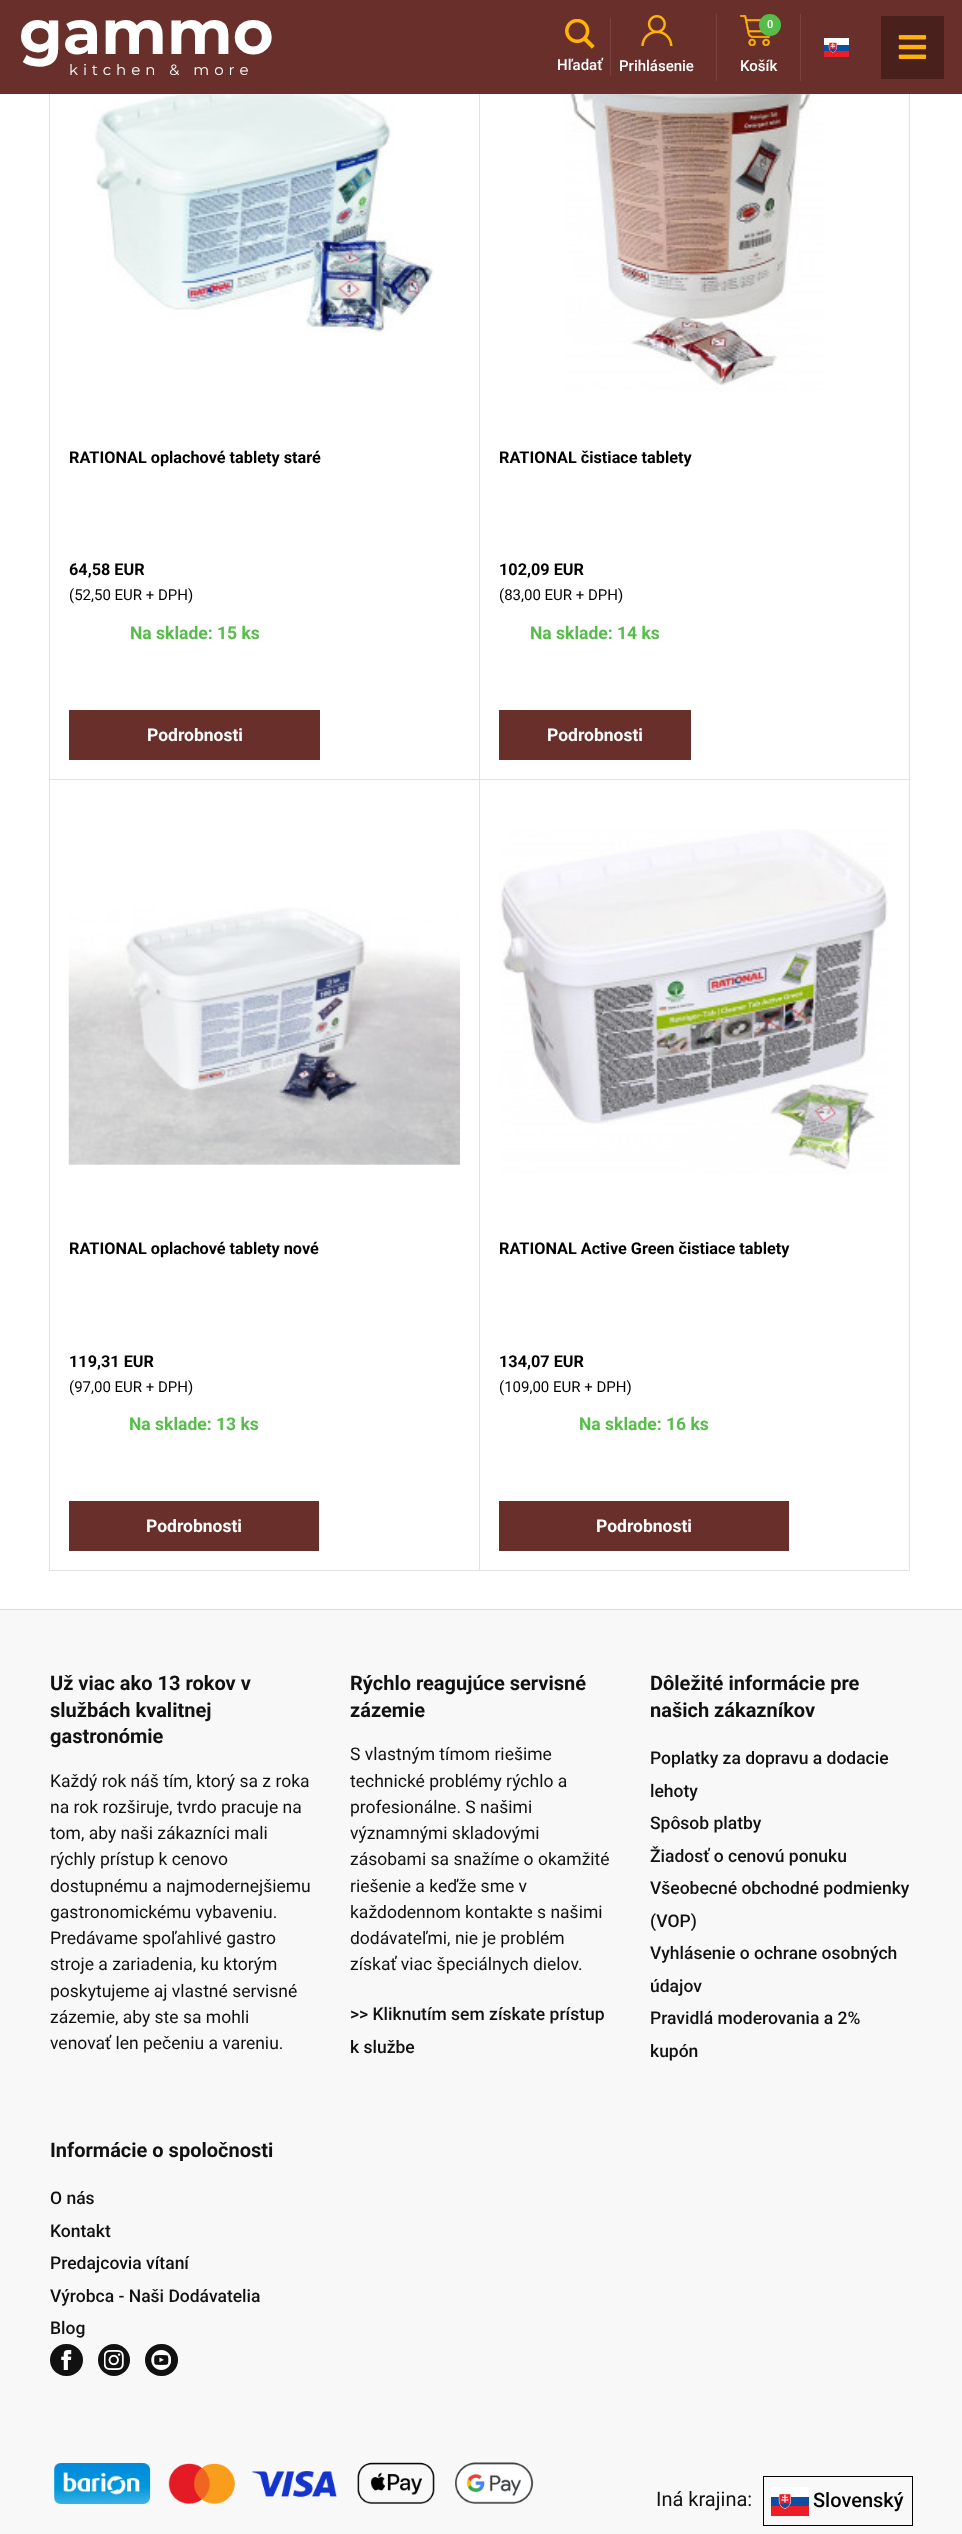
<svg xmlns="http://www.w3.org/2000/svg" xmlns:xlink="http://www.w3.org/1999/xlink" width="962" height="2534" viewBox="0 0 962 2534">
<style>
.cls-1{font:bold 62.5px Montserrat;fill:#ffffff}
.cls-2{font:15px Montserrat;letter-spacing:5px;fill:#ffffff}
.cls-3{font:500 11px Roboto;fill:#ffffff}
.cls-4{font:500 15px Roboto;fill:#ffffff}
.cls-5{font:bold 16.25px Roboto;fill:#000000}
.cls-6{font:15px Roboto;fill:#000000}
.cls-7{font:bold 17.5px Roboto;fill:#57bc4a}
.cls-8{font:bold 17.5px Roboto;fill:#ffffff}
.cls-9{font:bold 20px Roboto;fill:#111111}
.cls-10{font:17.5px Roboto;fill:#111111}
.cls-11{font:500 17.5px Roboto;fill:#111111}
.cls-12{font:20px Roboto;fill:#111111}
.cls-13{font:500 20px Roboto;fill:#000000}
</style>
<rect width="100%" height="100%" fill="#ffffff"/>
<rect fill="none" stroke="#e2e2e2" x="49.5" y="-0.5" width="430" height="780"/>
<rect fill="none" stroke="#e2e2e2" x="479.5" y="-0.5" width="430" height="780"/>
<rect fill="#692f2b" x="0" y="0" width="962" height="94"/>
<rect fill="#784440" x="800" y="14" width="1" height="67"/>
<image xlink:href="image0.png" x="740" y="15" width="30" height="31"/>
<circle fill="#57bc4a" cx="770" cy="25" r="11"/>
<image xlink:href="image1.png" x="824" y="38" width="25" height="19"/>
<rect fill="#4a201d" x="881" y="16" width="63" height="63"/>
<image xlink:href="image2.png" x="898" y="35" width="29" height="24"/>
<rect fill="#784440" x="610" y="18" width="1" height="58"/>
<image xlink:href="image3.png" x="565" y="19" width="30" height="30"/>
<rect fill="#784440" x="716" y="14" width="1" height="67"/>
<image xlink:href="image4.png" x="641" y="15" width="32" height="31"/>
<image xlink:href="image5.png" x="94" y="94" width="340" height="239"/>
<rect fill="#692f2b" x="69" y="710" width="251" height="50"/>
<image xlink:href="image6.png" x="565" y="94" width="259" height="298"/>
<rect fill="#692f2b" x="499" y="710" width="192" height="50"/>
<rect fill="none" stroke="#e2e2e2" x="49.5" y="779.5" width="430" height="791"/>
<image xlink:href="image7.png" x="68" y="907" width="392" height="258"/>
<rect fill="#692f2b" x="69" y="1501" width="250" height="50"/>
<rect fill="none" stroke="#e2e2e2" x="479.5" y="779.5" width="430" height="791"/>
<image xlink:href="image8.png" x="499" y="829" width="389" height="345"/>
<rect fill="#692f2b" x="499" y="1501" width="290" height="50"/>
<rect fill="#f8f8f8" x="0" y="1610" width="962" height="924"/>
<rect fill="#d9d9d9" x="0" y="1609" width="962" height="1"/>
<rect fill="#111111" x="50" y="2344" width="33" height="32" rx="16"/>
<image xlink:href="image9.png" x="61" y="2350" width="11" height="20"/>
<circle fill="#111111" cx="114" cy="2360" r="16"/>
<image xlink:href="image10.png" x="104" y="2350" width="20" height="20"/>
<rect fill="#111111" x="145" y="2344" width="33" height="32" rx="16"/>
<image xlink:href="image11.png" x="151" y="2350" width="20" height="20"/>
<image xlink:href="image12.png" x="54" y="2462" width="480" height="42"/>
<rect fill="none" stroke="#000000" x="763.5" y="2476.5" width="149" height="49"/>
<image xlink:href="image13.png" x="771" y="2487" width="38" height="29"/>
<text class="cls-1" x="19" y="54">gammo</text>
<text class="cls-2" x="69" y="75">kitchen &amp; more</text>
<text class="cls-3" x="767" y="28">0</text>
<text class="cls-4" x="740" y="71">Košík</text>
<text class="cls-4" x="557" y="70">Hľadať</text>
<text class="cls-4" x="619" y="71">Prihlásenie</text>
<text class="cls-5" x="69" y="463">RATIONAL oplachové tablety staré</text>
<text class="cls-5" x="69" y="575">64,58 EUR</text>
<text class="cls-6" x="69" y="600">(52,50 EUR + DPH)</text>
<text class="cls-7" x="130" y="639">Na sklade: 15 ks</text>
<text class="cls-8" x="147" y="741">Podrobnosti</text>
<text class="cls-5" x="499" y="463">RATIONAL čistiace tablety</text>
<text class="cls-5" x="499" y="575">102,09 EUR</text>
<text class="cls-6" x="499" y="600">(83,00 EUR + DPH)</text>
<text class="cls-7" x="530" y="639">Na sklade: 14 ks</text>
<text class="cls-8" x="547" y="741">Podrobnosti</text>
<text class="cls-5" x="69" y="1254">RATIONAL oplachové tablety nové</text>
<text class="cls-5" x="69" y="1367">119,31 EUR</text>
<text class="cls-6" x="69" y="1392">(97,00 EUR + DPH)</text>
<text class="cls-7" x="129" y="1430">Na sklade: 13 ks</text>
<text class="cls-8" x="146" y="1532">Podrobnosti</text>
<text class="cls-5" x="499" y="1254">RATIONAL Active Green čistiace tablety</text>
<text class="cls-5" x="499" y="1367">134,07 EUR</text>
<text class="cls-6" x="499" y="1392">(109,00 EUR + DPH)</text>
<text class="cls-7" x="579" y="1430">Na sklade: 16 ks</text>
<text class="cls-8" x="596" y="1532">Podrobnosti</text>
<text class="cls-9"><tspan x="50" y="1690">Už viac ako 13 rokov v</tspan><tspan x="50" y="1717">službách kvalitnej</tspan><tspan x="50" y="1743">gastronómie</tspan></text>
<text class="cls-10"><tspan x="50" y="1787">Každý rok náš tím, ktorý sa z roka</tspan><tspan x="50" y="1813">na rok rozširuje, tvrdo pracuje na</tspan><tspan x="50" y="1839">tom, aby naši zákazníci mali</tspan><tspan x="50" y="1865">rýchly prístup k cenovo</tspan><tspan x="50" y="1892">dostupnému a najmodernejšiemu</tspan><tspan x="50" y="1918">gastronomickému vybaveniu.</tspan><tspan x="50" y="1944">Predávame spoľahlivé gastro</tspan><tspan x="50" y="1970">stroje a zariadenia, ku ktorým</tspan><tspan x="50" y="1997">poskytujeme aj vlastné servisné</tspan><tspan x="50" y="2023">zázemie, aby ste sa mohli</tspan><tspan x="50" y="2049">venovať len pečeniu a vareniu.</tspan></text>
<text class="cls-9"><tspan x="350" y="1690">Rýchlo reagujúce servisné</tspan><tspan x="350" y="1717">zázemie</tspan></text>
<text class="cls-10"><tspan x="350" y="1760">S vlastným tímom riešime</tspan><tspan x="350" y="1787">technické problémy rýchlo a</tspan><tspan x="350" y="1813">profesionálne. S našimi</tspan><tspan x="350" y="1839">významnými skladovými</tspan><tspan x="350" y="1865">zásobami sa snažíme o okamžité</tspan><tspan x="350" y="1892">riešenie a keďže sme v</tspan><tspan x="350" y="1918">každodennom kontakte s našimi</tspan><tspan x="350" y="1944">dodávateľmi, nie je problém</tspan><tspan x="350" y="1970">získať viac špeciálnych dielov.</tspan></text>
<text class="cls-11"><tspan x="350" y="2020">&gt;&gt; Kliknutím sem získate prístup</tspan><tspan x="350" y="2053">k službe</tspan></text>
<text class="cls-9"><tspan x="650" y="1690">Dôležité informácie pre</tspan><tspan x="650" y="1717">našich zákazníkov</tspan></text>
<text class="cls-11"><tspan x="650" y="1764">Poplatky za dopravu a dodacie</tspan><tspan x="650" y="1797">lehoty</tspan><tspan x="650" y="1829">Spôsob platby</tspan><tspan x="650" y="1862">Žiadosť o cenovú ponuku</tspan><tspan x="650" y="1894">Všeobecné obchodné podmienky</tspan><tspan x="650" y="1927">(VOP)</tspan><tspan x="650" y="1959">Vyhlásenie o ochrane osobných</tspan><tspan x="650" y="1992">údajov</tspan><tspan x="650" y="2024">Pravidlá moderovania a 2%</tspan><tspan x="650" y="2057">kupón</tspan></text>
<text class="cls-9" x="50" y="2157">Informácie o spoločnosti</text>
<text class="cls-11"><tspan x="50" y="2204">O nás</tspan><tspan x="50" y="2237">Kontakt</tspan><tspan x="50" y="2269">Predajcovia vítaní</tspan><tspan x="50" y="2302">Výrobca - Naši Dodávatelia</tspan><tspan x="50" y="2334">Blog</tspan></text>
<text class="cls-12" x="656" y="2506">Iná krajina:</text>
<text class="cls-13" x="813" y="2507">Slovenský</text>
</svg>
